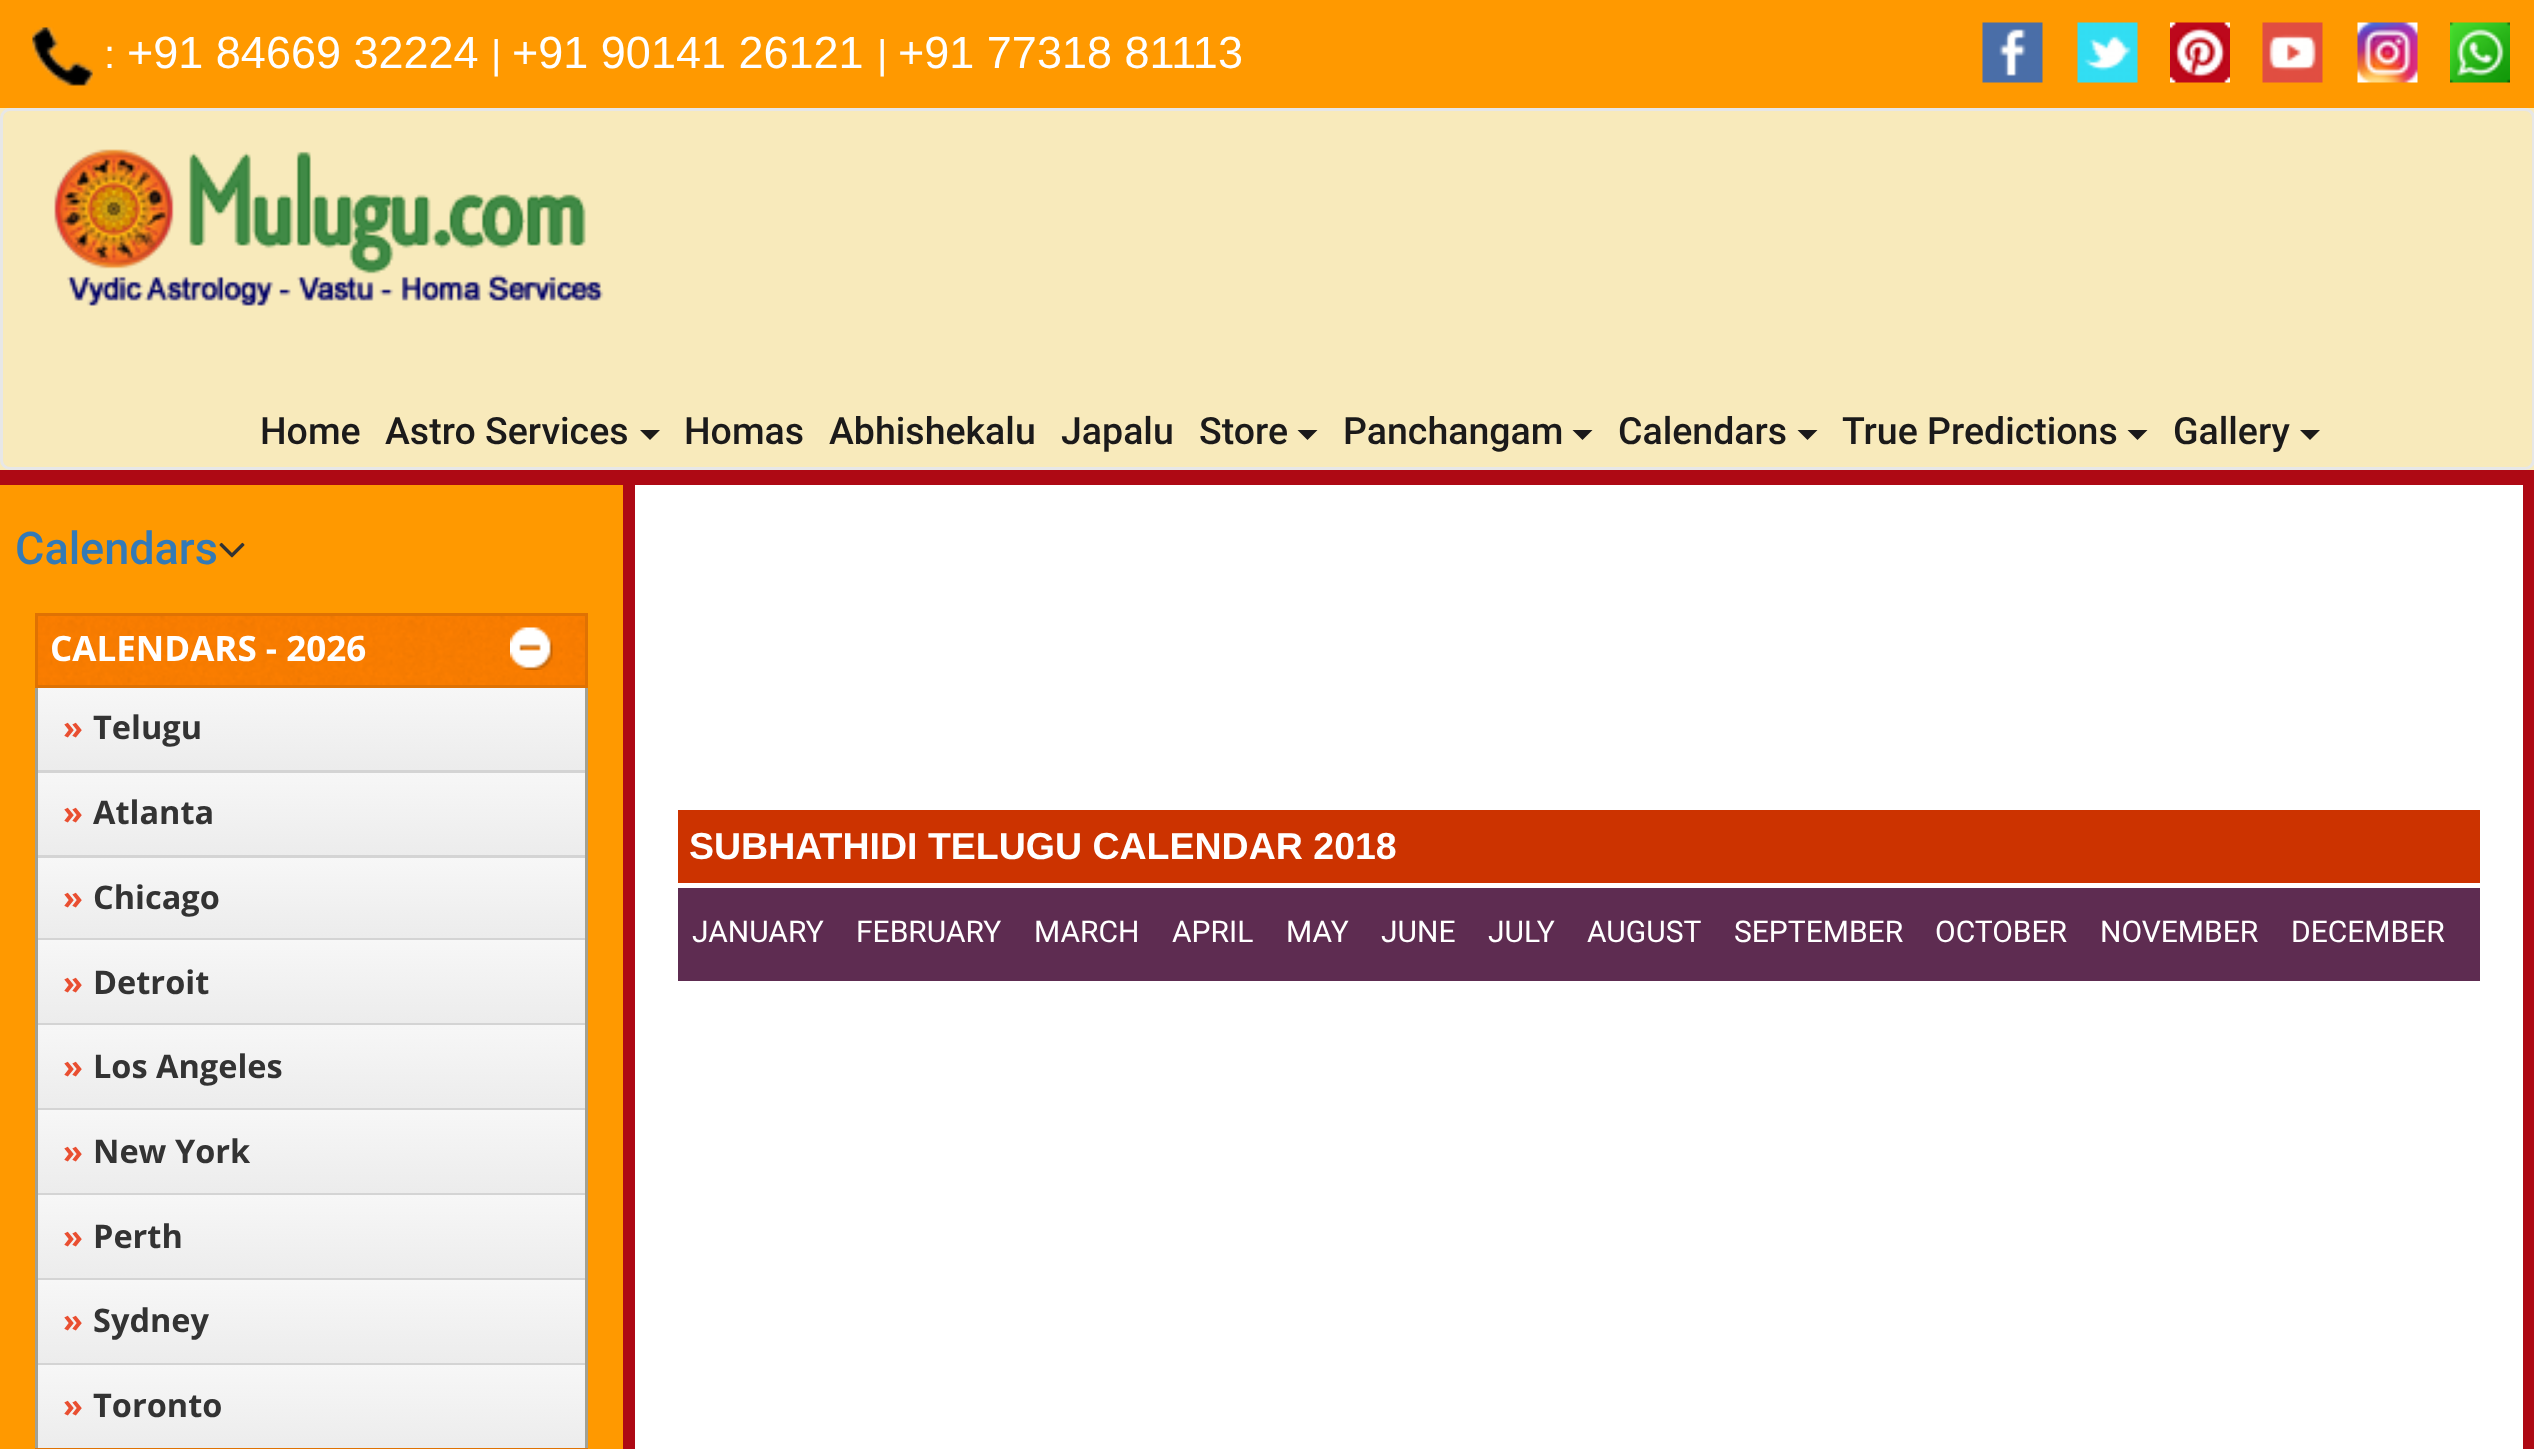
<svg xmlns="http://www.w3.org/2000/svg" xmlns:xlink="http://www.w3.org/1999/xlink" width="2534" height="1449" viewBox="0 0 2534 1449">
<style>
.cls-1{font:40px Liberation Sans;fill:#ffffff}
.cls-2{font:45px Liberation Sans;fill:#ffffff}
.cls-3{font:500 37.5px Roboto;fill:#1b1a1a}
.cls-4{font:500 45px Roboto;fill:#337ab7}
.cls-5{font:bold 35px Open Sans;fill:#ffffff}
.cls-6{font:bold 32.5px Open Sans;fill:#e94f31}
.cls-7{font:bold 32.5px Open Sans;fill:#333333}
.cls-8{font:bold 37.5px Liberation Sans;fill:#ffffff}
.cls-9{font:30px Roboto;fill:#ffffff}
</style>
<defs>
<linearGradient id="g1" gradientUnits="userSpaceOnUse" x1="311" y1="688" x2="311" y2="770"><stop offset="0" stop-color="#f7f7f7"/><stop offset="1" stop-color="#ececec"/></linearGradient>
<linearGradient id="g2" gradientUnits="userSpaceOnUse" x1="311" y1="773" x2="311" y2="855"><stop offset="0" stop-color="#f7f7f7"/><stop offset="1" stop-color="#ececec"/></linearGradient>
<linearGradient id="g3" gradientUnits="userSpaceOnUse" x1="311" y1="858" x2="311" y2="938"><stop offset="0" stop-color="#f7f7f7"/><stop offset="1" stop-color="#ececec"/></linearGradient>
<linearGradient id="g4" gradientUnits="userSpaceOnUse" x1="311" y1="940" x2="311" y2="1023"><stop offset="0" stop-color="#f7f7f7"/><stop offset="1" stop-color="#ececec"/></linearGradient>
<linearGradient id="g5" gradientUnits="userSpaceOnUse" x1="311" y1="1025" x2="311" y2="1108"><stop offset="0" stop-color="#f7f7f7"/><stop offset="1" stop-color="#ececec"/></linearGradient>
<linearGradient id="g6" gradientUnits="userSpaceOnUse" x1="311" y1="1110" x2="311" y2="1193"><stop offset="0" stop-color="#f7f7f7"/><stop offset="1" stop-color="#ececec"/></linearGradient>
<linearGradient id="g7" gradientUnits="userSpaceOnUse" x1="311" y1="1195" x2="311" y2="1278"><stop offset="0" stop-color="#f7f7f7"/><stop offset="1" stop-color="#ececec"/></linearGradient>
<linearGradient id="g8" gradientUnits="userSpaceOnUse" x1="311" y1="1280" x2="311" y2="1363"><stop offset="0" stop-color="#f7f7f7"/><stop offset="1" stop-color="#ececec"/></linearGradient>
<linearGradient id="g9" gradientUnits="userSpaceOnUse" x1="311" y1="1365" x2="311" y2="1448"><stop offset="0" stop-color="#f7f7f7"/><stop offset="1" stop-color="#ececec"/></linearGradient>
</defs>
<rect width="100%" height="100%" fill="#ae0914"/>
<rect fill="#ff9900" x="0" y="0" width="2534" height="108"/>
<image xlink:href="image0.png" x="32" y="27" width="61" height="59"/>
<image xlink:href="image1.png" x="1982" y="22" width="61" height="61"/>
<image xlink:href="image2.png" x="2077" y="22" width="61" height="61"/>
<image xlink:href="image3.png" x="2170" y="22" width="60" height="61"/>
<image xlink:href="image4.png" x="2262" y="22" width="61" height="61"/>
<image xlink:href="image5.png" x="2357" y="22" width="61" height="61"/>
<image xlink:href="image6.png" x="2450" y="22" width="60" height="61"/>
<rect fill="#f8eabb" x="0" y="108" width="2534" height="362"/>
<rect fill="none" stroke="#e7e7e7" stroke-width="3" x="1.5" y="109.5" width="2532" height="359" rx="8.5"/>
<image xlink:href="image7.png" x="54" y="149" width="550" height="157"/>
<path fill="#1b1a1a" d="M640 430H660L650 440Z"/>
<path fill="#1b1a1a" d="M1297.5 430H1317.5L1307.5 440Z"/>
<path fill="#1b1a1a" d="M1572.5 430H1592.5L1582.5 440Z"/>
<path fill="#1b1a1a" d="M1797.5 430H1817.5L1807.5 440Z"/>
<path fill="#1b1a1a" d="M2127.5 430H2147.5L2137.5 440Z"/>
<path fill="#1b1a1a" d="M2300 430H2320L2310 440Z"/>
<rect fill="#ff9900" x="0" y="485" width="623" height="964"/>
<image xlink:href="image8.png" x="219" y="542" width="26" height="16"/>
<rect fill="#ff8000" x="38" y="616" width="547" height="69"/>
<image xlink:href="image9.png" x="38" y="616" width="547" height="69"/>
<rect fill="none" stroke="#df7203" stroke-width="3" x="36.5" y="614.5" width="550" height="72"/>
<image xlink:href="image10.png" x="510" y="627" width="43" height="43"/>
<rect fill="#a2a194" x="585" y="688" width="3" height="760"/>
<rect fill="#a2a194" x="35" y="688" width="3" height="760"/>
<rect fill="url(#g1)" x="38" y="688" width="547" height="82"/>
<rect fill="#d4d4d4" x="38" y="770" width="547" height="3"/>
<rect fill="url(#g2)" x="38" y="773" width="547" height="82"/>
<rect fill="#d4d4d4" x="38" y="855" width="547" height="3"/>
<rect fill="url(#g3)" x="38" y="858" width="547" height="80"/>
<rect fill="#d4d4d4" x="38" y="938" width="547" height="2"/>
<rect fill="url(#g4)" x="38" y="940" width="547" height="83"/>
<rect fill="#d4d4d4" x="38" y="1023" width="547" height="2"/>
<rect fill="url(#g5)" x="38" y="1025" width="547" height="83"/>
<rect fill="#d4d4d4" x="38" y="1108" width="547" height="2"/>
<rect fill="url(#g6)" x="38" y="1110" width="547" height="83"/>
<rect fill="#d4d4d4" x="38" y="1193" width="547" height="2"/>
<rect fill="url(#g7)" x="38" y="1195" width="547" height="83"/>
<rect fill="#d4d4d4" x="38" y="1278" width="547" height="2"/>
<rect fill="url(#g8)" x="38" y="1280" width="547" height="83"/>
<rect fill="#d4d4d4" x="38" y="1363" width="547" height="2"/>
<rect fill="url(#g9)" x="38" y="1365" width="547" height="83"/>
<rect fill="none" stroke="#df7203" stroke-width="3" x="36.5" y="1449.5" width="550" height="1"/>
<rect fill="#ffffff" x="635" y="485" width="1888" height="964"/>
<rect fill="#cc3300" x="678" y="810" width="1802" height="73"/>
<rect fill="#5e2c51" x="678" y="888" width="1802" height="93"/>
<text class="cls-1" x="104" y="68">:</text>
<text class="cls-2" x="127" y="68">+91 84669 32224</text>
<text class="cls-1" x="491" y="68">|</text>
<text class="cls-2" x="512" y="68">+91 90141 26121</text>
<text class="cls-1" x="877" y="68">|</text>
<text class="cls-2" x="898" y="68">+91 77318 81113</text>
<text class="cls-3" x="260" y="444">Home</text>
<text class="cls-3" x="385" y="444">Astro Services</text>
<text class="cls-3" x="684" y="444">Homas</text>
<text class="cls-3" x="829" y="444">Abhishekalu</text>
<text class="cls-3" x="1061" y="444">Japalu</text>
<text class="cls-3" x="1199" y="444">Store</text>
<text class="cls-3" x="1343" y="444">Panchangam</text>
<text class="cls-3" x="1618" y="444">Calendars</text>
<text class="cls-3" x="1842" y="444">True Predictions</text>
<text class="cls-3" x="2173" y="444">Gallery</text>
<text class="cls-4" x="15" y="564">Calendars</text>
<text class="cls-5" x="50" y="661">CALENDARS - 2026</text>
<text class="cls-6" x="63" y="739">»</text>
<text class="cls-7" x="93" y="739">Telugu</text>
<text class="cls-6" x="63" y="824">»</text>
<text class="cls-7" x="93" y="824">Atlanta</text>
<text class="cls-6" x="63" y="909">»</text>
<text class="cls-7" x="93" y="909">Chicago</text>
<text class="cls-6" x="63" y="994">»</text>
<text class="cls-7" x="93" y="994">Detroit</text>
<text class="cls-6" x="63" y="1078">»</text>
<text class="cls-7" x="93" y="1078">Los Angeles</text>
<text class="cls-6" x="63" y="1163">»</text>
<text class="cls-7" x="93" y="1163">New York</text>
<text class="cls-6" x="63" y="1248">»</text>
<text class="cls-7" x="93" y="1248">Perth</text>
<text class="cls-6" x="63" y="1332">»</text>
<text class="cls-7" x="93" y="1332">Sydney</text>
<text class="cls-6" x="63" y="1417">»</text>
<text class="cls-7" x="93" y="1417">Toronto</text>
<text class="cls-8" x="689" y="859">SUBHATHIDI TELUGU CALENDAR 2018</text>
<text class="cls-9" x="692" y="942">JANUARY</text>
<text class="cls-9" x="856" y="942">FEBRUARY</text>
<text class="cls-9" x="1034" y="942">MARCH</text>
<text class="cls-9" x="1172" y="942">APRIL</text>
<text class="cls-9" x="1286" y="942">MAY</text>
<text class="cls-9" x="1381" y="942">JUNE</text>
<text class="cls-9" x="1488" y="942">JULY</text>
<text class="cls-9" x="1587" y="942">AUGUST</text>
<text class="cls-9" x="1734" y="942">SEPTEMBER</text>
<text class="cls-9" x="1935" y="942">OCTOBER</text>
<text class="cls-9" x="2100" y="942">NOVEMBER</text>
<text class="cls-9" x="2291" y="942">DECEMBER</text>
</svg>
